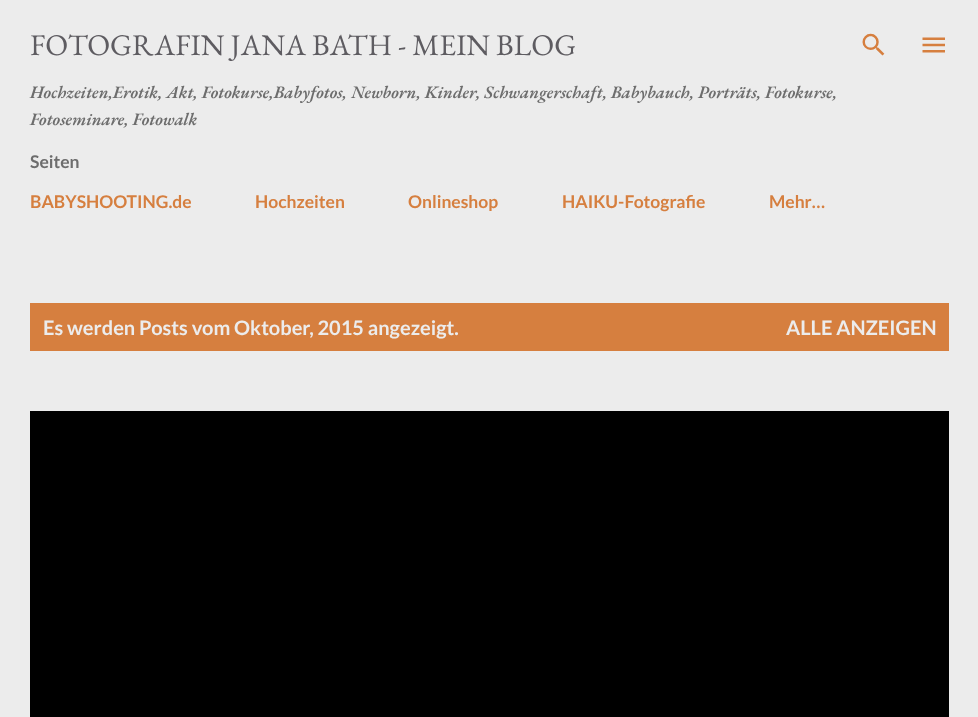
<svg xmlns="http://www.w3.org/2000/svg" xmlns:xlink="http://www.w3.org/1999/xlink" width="978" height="717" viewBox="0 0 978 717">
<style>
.cls-1{font:30px EB Garamond;fill:#5e5c61}
.cls-2{font:italic 600 17.5px EB Garamond;fill:#6d6d6d}
.cls-3{font:bold 17.5px Lato;fill:#6d6d6d}
.cls-4{font:bold 17.5px Lato;fill:#d67f3f}
.cls-5{font:bold 20px Lato;fill:#ececec}
</style>
<rect width="100%" height="100%" fill="#ececec"/>
<image xlink:href="image0.png" x="862" y="33" width="23" height="23"/>
<image xlink:href="image1.png" x="922" y="37" width="23" height="16"/>
<rect fill="#d67f3f" x="30" y="303" width="919" height="48"/>
<rect fill="#000000" x="30" y="411" width="919" height="306"/>
<text class="cls-1" x="30" y="55">FOTOGRAFIN JANA BATH - MEIN BLOG</text>
<text class="cls-2"><tspan x="30" y="98">Hochzeiten,Erotik, Akt, Fotokurse,Babyfotos, Newborn, Kinder, Schwangerschaft, Babybauch, Porträts, Fotokurse,</tspan><tspan x="30" y="125">Fotoseminare, Fotowalk</tspan></text>
<text class="cls-3" x="30" y="168">Seiten</text>
<text class="cls-4" x="30" y="208">BABYSHOOTING.de</text>
<text class="cls-4" x="255" y="208">Hochzeiten</text>
<text class="cls-4" x="408" y="208">Onlineshop</text>
<text class="cls-4" x="562" y="208">HAIKU-Fotografie</text>
<text class="cls-4" x="769" y="208">Mehr…</text>
<text class="cls-5" x="43" y="335">Es werden Posts vom Oktober, 2015 angezeigt.</text>
<text class="cls-5" x="786" y="335">ALLE ANZEIGEN</text>
</svg>
